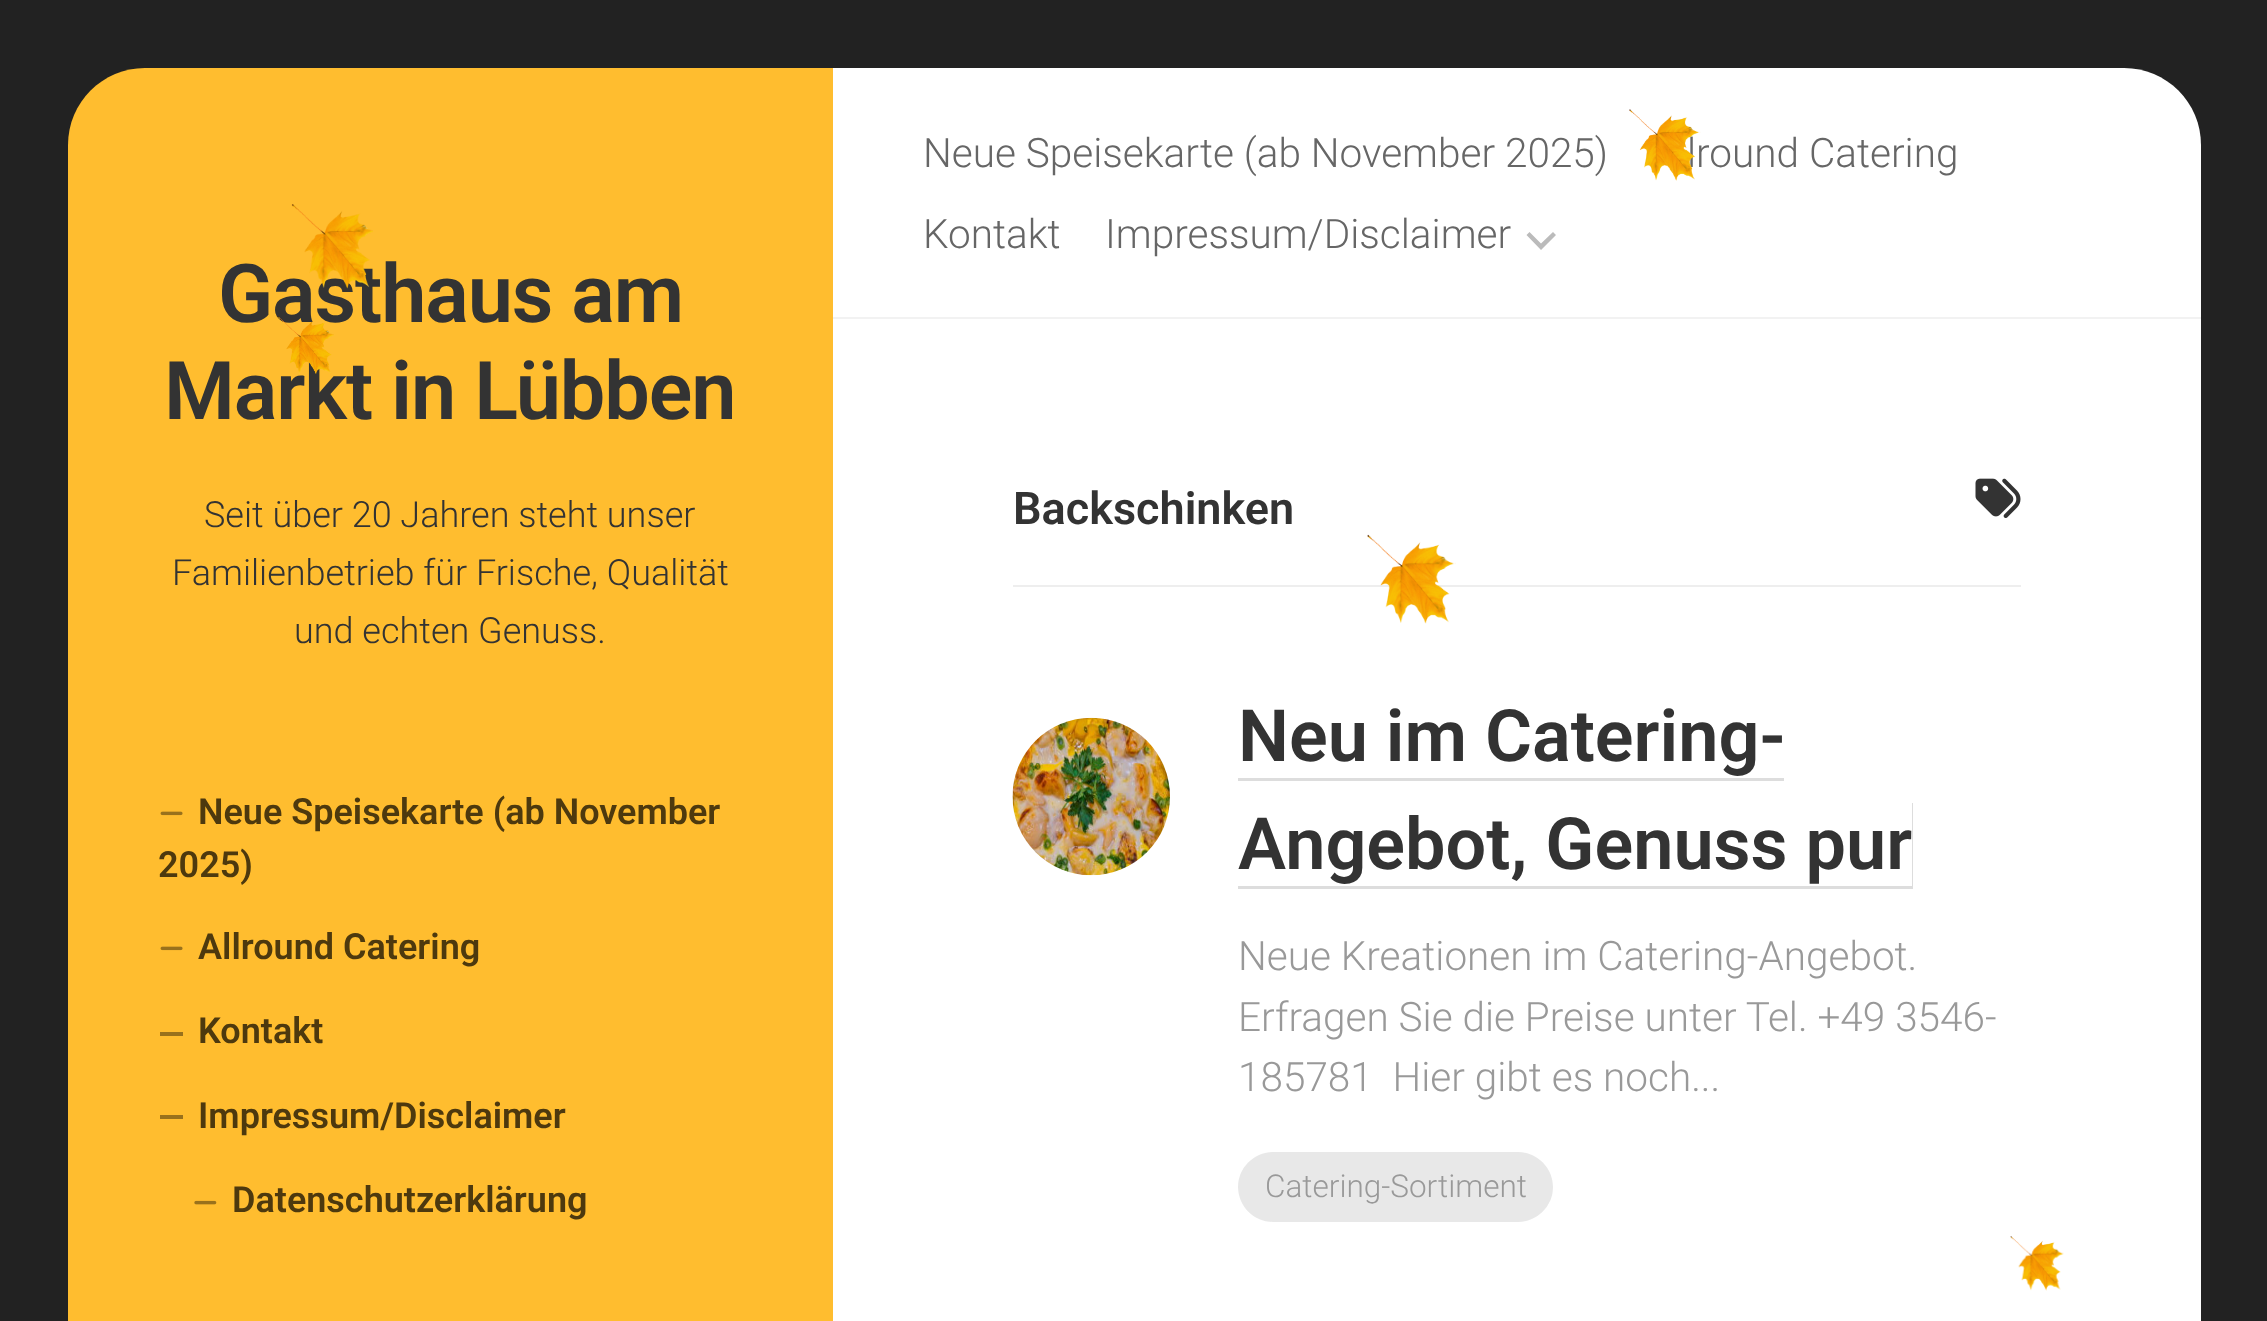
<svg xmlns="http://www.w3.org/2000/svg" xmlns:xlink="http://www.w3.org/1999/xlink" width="2267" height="1321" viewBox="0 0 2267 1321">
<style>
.cls-1{font:600 81px Roboto;letter-spacing:-1.1px;fill:#333333}
.cls-2{font:300 36px Roboto;fill:#333333}
.cls-3{font:600 36px Roboto;fill:#4d390e}
.cls-4{font:300 40.5px Roboto;fill:#666666}
.cls-5{font:600 45px Roboto;fill:#333333}
.cls-6{font:600 72px Roboto;fill:#333333}
.cls-7{font:300 40.5px Roboto;fill:#999999}
.cls-8{font:300 31.5px Roboto;fill:#999999}
</style>
<rect width="100%" height="100%" fill="#222222"/>
<path fill="#ffbd2f" d="M145 68H833V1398H145C102.5 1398 68 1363.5 68 1321V145C68 102.5 102.5 68 145 68Z"/>
<image xlink:href="image1.png" x="160" y="811" width="23" height="5"/>
<image xlink:href="image1.png" x="160" y="946" width="23" height="5"/>
<rect fill="#99711c" x="160" y="1032" width="23" height="4"/>
<rect fill="#99711c" x="160" y="1115" width="23" height="4"/>
<image xlink:href="image2.png" x="194" y="1200" width="23" height="5"/>
<path fill="#ffffff" d="M833 68H2124C2166.5 68 2201 102.5 2201 145V320H833Z"/>
<rect fill="#f2f2f2" x="833" y="317" width="1368" height="2"/>
<path fill="#bbbbbb" fill-rule="evenodd" d="M1541 243.5L1553 232L1556 235L1541 250L1526.5 235L1529.5 232Z"/>
<rect fill="#ffffff" x="833" y="320" width="1368" height="1001"/>
<rect fill="#eeeeee" x="1013" y="585" width="1008" height="2"/>
<image xlink:href="image3.png" x="1975" y="478" width="46" height="40"/>
<image xlink:href="image4.png" x="1012" y="717" width="158" height="159"/>
<rect fill="#dddddd" x="1238" y="778" width="546" height="3"/>
<path fill="#dddddd" d="M1238 886V889H1913V803H1912V886Z"/>
<rect fill="#f5f5f5" x="1238" y="1152" width="315" height="70" rx="35"/>
<path fill="#000000" fill-opacity="0.05" d="M1273 1152C1254 1152 1238 1168 1238 1187V1188C1239 1207 1254 1222 1273 1222H1518C1532 1222 1543 1214 1549 1203C1552 1198 1553 1193 1553 1187C1553 1168 1537 1152 1518 1152Z"/>
<image xlink:href="image7.png" x="1367" y="534" width="89" height="90"/>
<image xlink:href="image8.png" x="2010" y="1236" width="54" height="55"/>
<text class="cls-1" x="218" y="322">Gasthaus am</text>
<text class="cls-1" x="164" y="419">Markt in Lübben</text>
<text class="cls-2" x="204" y="527">Seit über 20 Jahren steht unser</text>
<text class="cls-2" x="172" y="585">Familienbetrieb für Frische, Qualität</text>
<text class="cls-2" x="294" y="643">und echten Genuss.</text>
<text class="cls-3" x="198" y="824">Neue Speisekarte (ab November</text>
<text class="cls-3" x="158" y="877">2025)</text>
<text class="cls-3" x="198" y="959">Allround Catering</text>
<text class="cls-3" x="198" y="1043">Kontakt</text>
<text class="cls-3" x="198" y="1128">Impressum/Disclaimer</text>
<text class="cls-3" x="232" y="1212">Datenschutzerklärung</text>
<text class="cls-4" x="923" y="167">Neue Speisekarte (ab November 2025)</text>
<text class="cls-4" x="1687" y="167">lround Catering</text>
<image xlink:href="image0.png" x="1629" y="109" width="72" height="72"/>
<text class="cls-4" x="923" y="248">Kontakt</text>
<text class="cls-4" x="1105" y="248">Impressum/Disclaimer</text>
<text class="cls-5" x="1013" y="524">Backschinken</text>
<text class="cls-6"><tspan x="1238" y="761">Neu im Catering-</tspan><tspan x="1238" y="869">Angebot, Genuss pur</tspan></text>
<text class="cls-7" xml:space="preserve"><tspan x="1238" y="970">Neue Kreationen im Catering-Angebot.</tspan><tspan x="1238" y="1031">Erfragen Sie die Preise unter Tel. +49 3546-</tspan><tspan x="1238" y="1091">185781  Hier gibt es noch...</tspan></text>
<text class="cls-8" x="1265" y="1197">Catering-Sortiment</text>
<image xlink:href="image5.png" x="291" y="204" width="82" height="85"/>
<image xlink:href="image6.png" x="277" y="316" width="57" height="58"/>
</svg>
